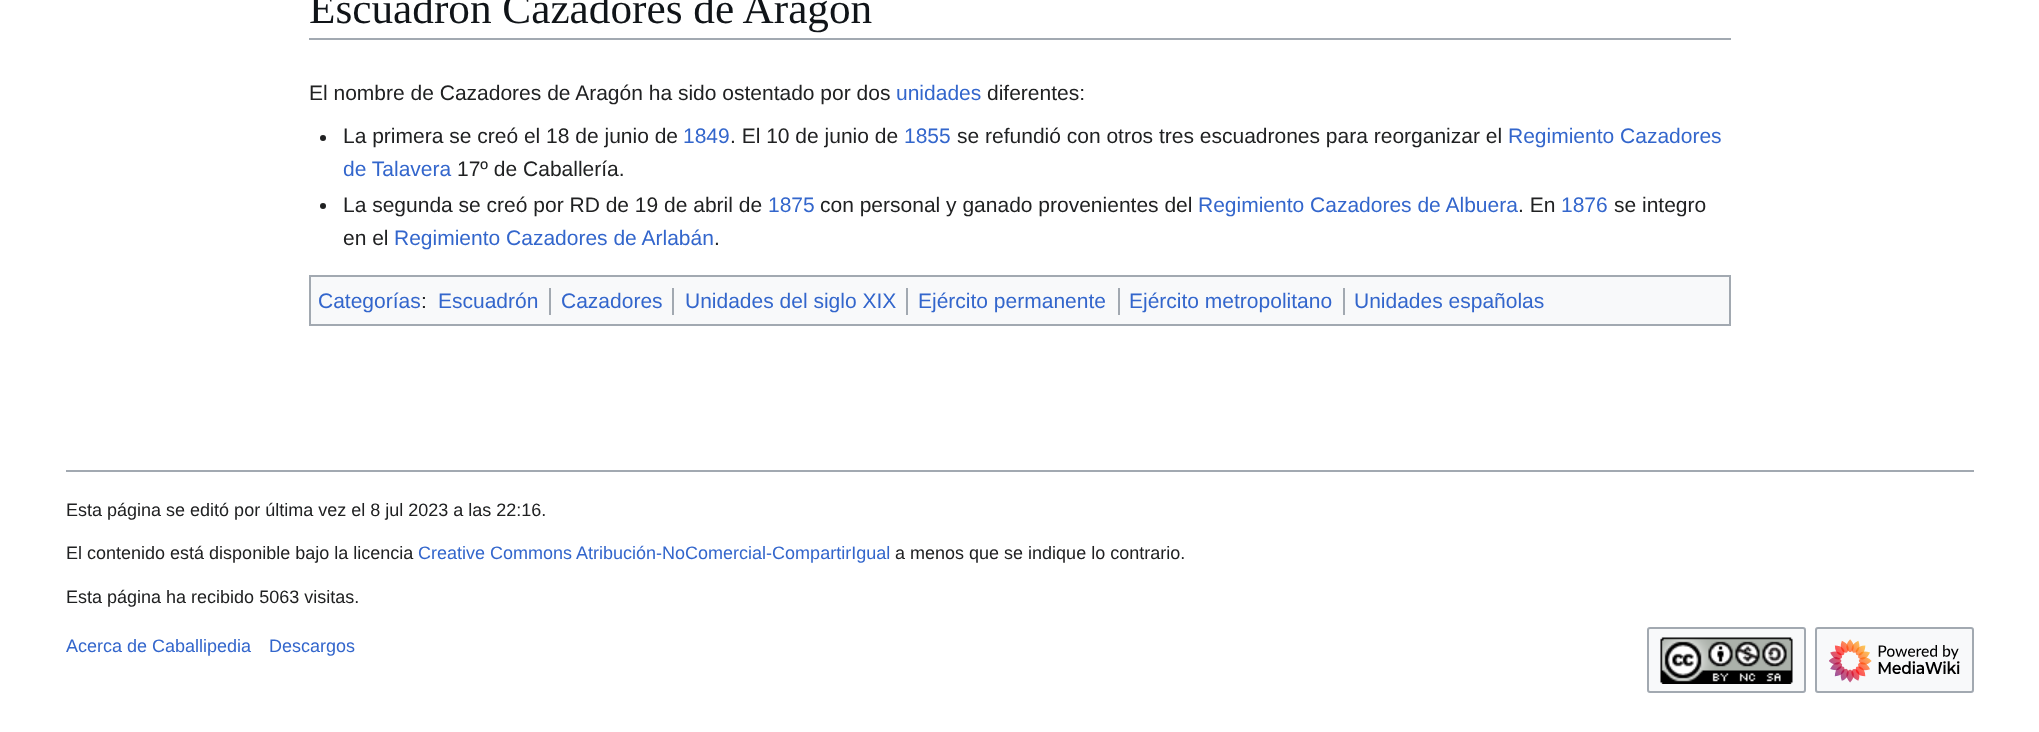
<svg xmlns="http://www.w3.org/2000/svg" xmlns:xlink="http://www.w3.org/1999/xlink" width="2039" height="732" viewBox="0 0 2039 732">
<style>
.cls-1{font:43.25px Liberation Serif;fill:#101418}
.cls-2{font:21px Liberation Sans;fill:#202122}
.cls-3{font:21px Liberation Sans;fill:#3366cc}
.cls-4{font:18px Liberation Sans;fill:#202122}
.cls-5{font:18px Liberation Sans;fill:#3366cc}
</style>
<rect width="100%" height="100%" fill="#ffffff"/>
<rect fill="#a2a9b1" x="309" y="38" width="1422" height="2"/>
<circle fill="#202122" cx="323" cy="138" r="3"/>
<circle fill="#202122" cx="323" cy="206" r="3"/>
<rect fill="#f8f9fa" stroke="#a2a9b1" stroke-width="2" x="310" y="276" width="1420" height="49"/>
<rect fill="#a2a9b1" x="549" y="288" width="2" height="27"/>
<rect fill="#a2a9b1" x="672" y="288" width="2" height="27"/>
<rect fill="#a2a9b1" x="906" y="288" width="2" height="27"/>
<rect fill="#a2a9b1" x="1118" y="288" width="2" height="27"/>
<rect fill="#a2a9b1" x="1343" y="288" width="2" height="27"/>
<rect fill="#a2a9b1" x="66" y="470" width="1908" height="2"/>
<rect fill="#f8f9fa" stroke="#a2a9b1" stroke-width="2" x="1648" y="628" width="157" height="64" rx="2"/>
<image xlink:href="image0.png" x="1660" y="637" width="133" height="47"/>
<rect fill="#f8f9fa" stroke="#a2a9b1" stroke-width="2" x="1816" y="628" width="157" height="64" rx="2"/>
<image xlink:href="image1.png" x="1829" y="639" width="131" height="44"/>
<text class="cls-1" x="309" y="23">Escuadrón Cazadores de Aragón</text>
<text class="cls-2" x="309" y="100">El nombre de Cazadores de Aragón ha sido ostentado por dos</text>
<text class="cls-3" x="896" y="100">unidades</text>
<text class="cls-2" x="987" y="100">diferentes:</text>
<text class="cls-2" x="343" y="143">La primera se creó el 18 de junio de</text>
<text class="cls-3" x="683" y="143">1849</text>
<text class="cls-2" x="730" y="143">. El 10 de junio de</text>
<text class="cls-3" x="904" y="143">1855</text>
<text class="cls-2" x="957" y="143">se refundió con otros tres escuadrones para reorganizar el</text>
<text class="cls-3" x="1508" y="143">Regimiento Cazadores</text>
<text class="cls-3" x="343" y="176">de Talavera</text>
<text class="cls-2" x="457" y="176">17º de Caballería.</text>
<text class="cls-2" x="343" y="212">La segunda se creó por RD de 19 de abril de</text>
<text class="cls-3" x="768" y="212">1875</text>
<text class="cls-2" x="820" y="212">con personal y ganado provenientes del</text>
<text class="cls-3" x="1198" y="212">Regimiento Cazadores de Albuera</text>
<text class="cls-2" x="1518" y="212">. En</text>
<text class="cls-3" x="1561" y="212">1876</text>
<text class="cls-2" x="1614" y="212">se integro</text>
<text class="cls-2" x="343" y="245">en el</text>
<text class="cls-3" x="394" y="245">Regimiento Cazadores de Arlabán</text>
<text class="cls-2" x="714" y="245">.</text>
<text class="cls-3" x="318" y="308">Categorías</text>
<text class="cls-2" x="421" y="308">:</text>
<text class="cls-3" x="438" y="308">Escuadrón</text>
<text class="cls-3" x="561" y="308">Cazadores</text>
<text class="cls-3" x="685" y="308">Unidades del siglo XIX</text>
<text class="cls-3" x="918" y="308">Ejército permanente</text>
<text class="cls-3" x="1129" y="308">Ejército metropolitano</text>
<text class="cls-3" x="1354" y="308">Unidades españolas</text>
<text class="cls-4" x="66" y="516">Esta página se editó por última vez el 8 jul 2023 a las 22:16.</text>
<text class="cls-4" x="66" y="559">El contenido está disponible bajo la licencia</text>
<text class="cls-5" x="418" y="559">Creative Commons Atribución-NoComercial-CompartirIgual</text>
<text class="cls-4" x="895" y="559">a menos que se indique lo contrario.</text>
<text class="cls-4" x="66" y="603">Esta página ha recibido 5063 visitas.</text>
<text class="cls-5" x="66" y="652">Acerca de Caballipedia</text>
<text class="cls-5" x="269" y="652">Descargos</text>
</svg>
